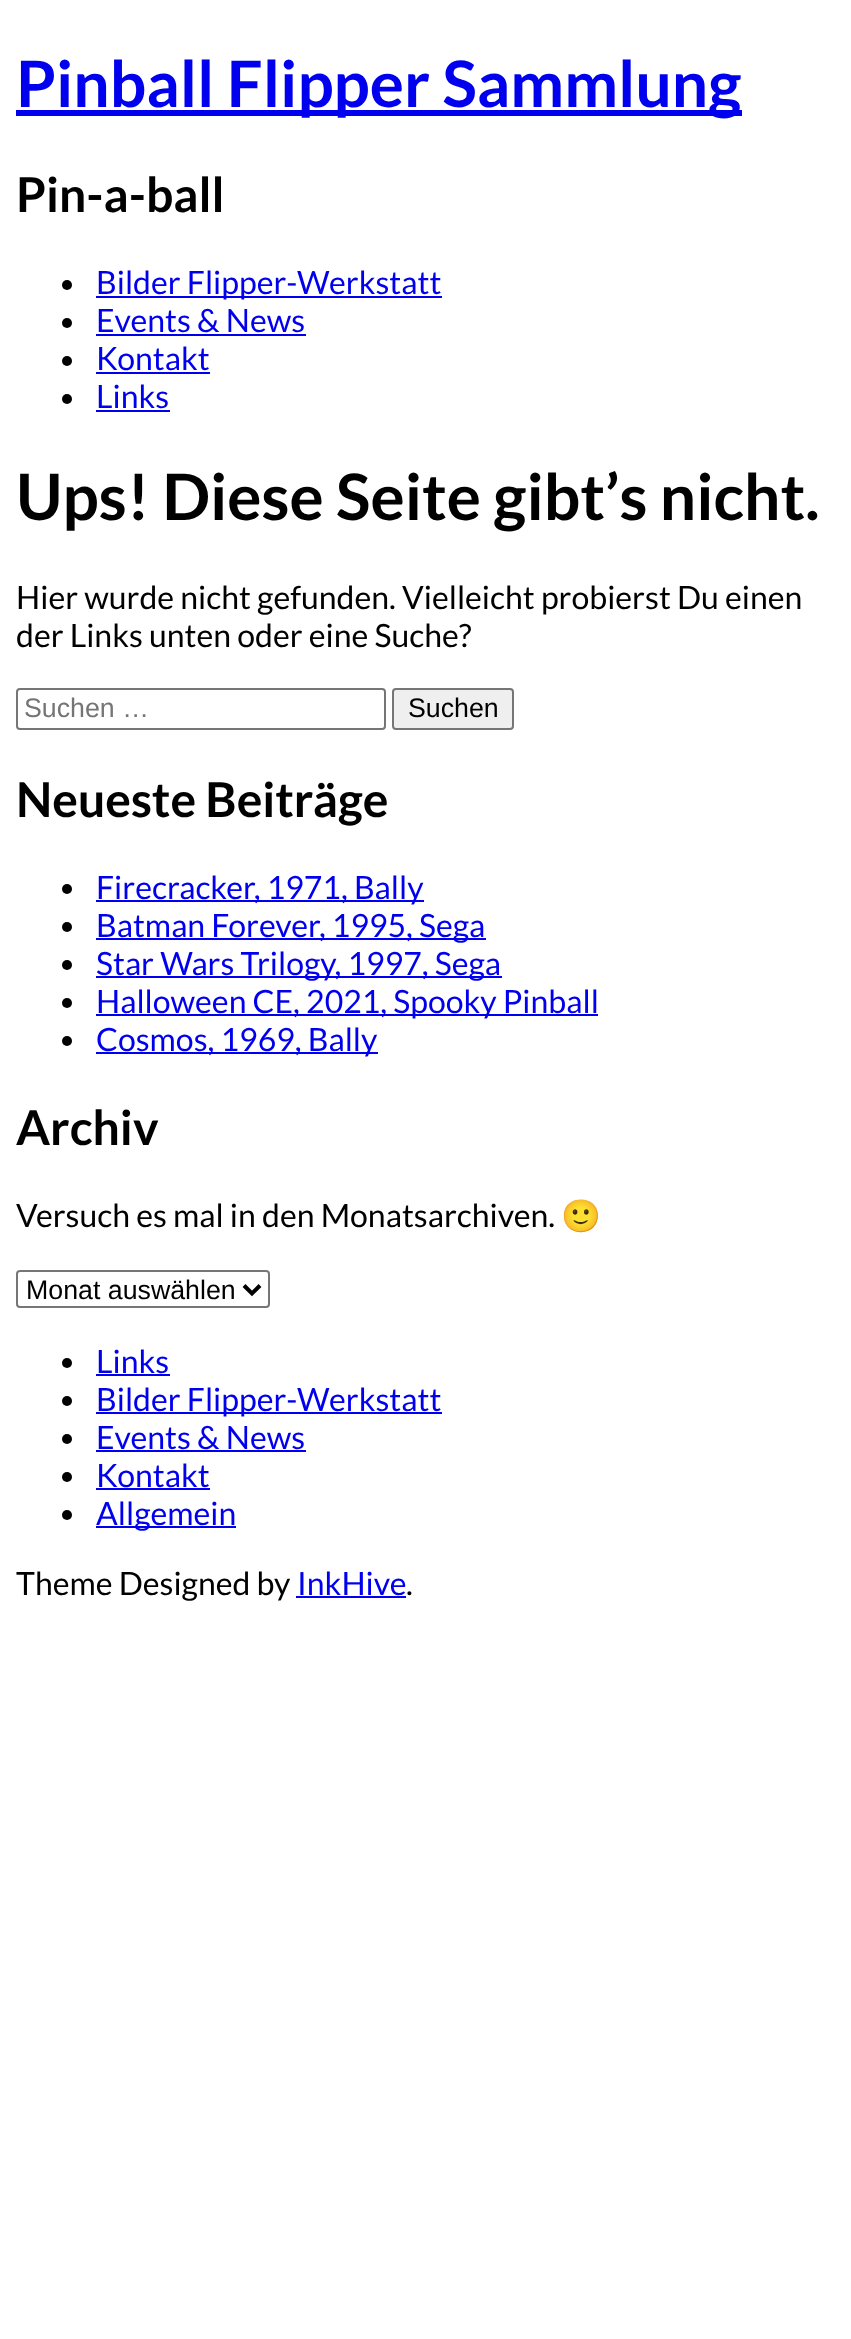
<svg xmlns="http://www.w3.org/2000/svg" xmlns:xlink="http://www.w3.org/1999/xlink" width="851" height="2339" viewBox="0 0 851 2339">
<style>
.cls-1{font:bold 64px Lato;fill:#0000ee}
.cls-2{font:bold 48px Lato;fill:#000000}
.cls-3{font:32px Lato;fill:#0000ee}
.cls-4{font:bold 64px Lato;fill:#000000}
.cls-5{font:32px Lato;fill:#000000}
.cls-6{font:26.75px Liberation Sans;fill:#757575}
.cls-7{font:26.75px Liberation Sans;fill:#000000}
.cls-8{font:32px Noto Color Emoji;fill:#000000}
</style>
<rect width="100%" height="100%" fill="#ffffff"/>
<rect fill="#0000ee" x="16" y="110" width="726" height="6"/>
<circle fill="#000000" cx="67" cy="285" r="5"/>
<rect fill="#0000ee" x="96" y="296" width="346" height="2"/>
<circle fill="#000000" cx="67" cy="323" r="5"/>
<rect fill="#0000ee" x="96" y="334" width="210" height="2"/>
<circle fill="#000000" cx="67" cy="361" r="5"/>
<rect fill="#0000ee" x="96" y="372" width="114" height="2"/>
<circle fill="#000000" cx="67" cy="399" r="5"/>
<rect fill="#0000ee" x="96" y="410" width="74" height="2"/>
<rect fill="none" stroke="#767676" stroke-width="2" x="17" y="689" width="368" height="40" rx="3"/>
<rect fill="#efefef" stroke="#767676" stroke-width="2" x="393" y="689" width="120" height="40" rx="3"/>
<circle fill="#000000" cx="67" cy="889" r="5"/>
<rect fill="#0000ee" x="96" y="900" width="328" height="2"/>
<circle fill="#000000" cx="67" cy="927" r="5"/>
<rect fill="#0000ee" x="96" y="938" width="390" height="2"/>
<circle fill="#000000" cx="67" cy="965" r="5"/>
<rect fill="#0000ee" x="96" y="976" width="406" height="2"/>
<circle fill="#000000" cx="67" cy="1003" r="5"/>
<rect fill="#0000ee" x="96" y="1014" width="502" height="2"/>
<circle fill="#000000" cx="67" cy="1041" r="5"/>
<rect fill="#0000ee" x="96" y="1052" width="282" height="2"/>
<rect fill="none" stroke="#767676" stroke-width="2" x="17" y="1271" width="252" height="36" rx="3"/>
<path fill="none" stroke="#000000" stroke-width="4" d="M244 1285.5L252 1293.5L260 1285.5"/>
<circle fill="#000000" cx="67" cy="1363" r="5"/>
<rect fill="#0000ee" x="96" y="1374" width="74" height="2"/>
<circle fill="#000000" cx="67" cy="1401" r="5"/>
<rect fill="#0000ee" x="96" y="1412" width="346" height="2"/>
<circle fill="#000000" cx="67" cy="1439" r="5"/>
<rect fill="#0000ee" x="96" y="1450" width="210" height="2"/>
<circle fill="#000000" cx="67" cy="1477" r="5"/>
<rect fill="#0000ee" x="96" y="1488" width="114" height="2"/>
<circle fill="#000000" cx="67" cy="1515" r="5"/>
<rect fill="#0000ee" x="96" y="1526" width="140" height="2"/>
<rect fill="#0000ee" x="296" y="1596" width="110" height="2"/>
<text class="cls-1" x="16" y="107">Pinball Flipper Sammlung</text>
<text class="cls-2" x="16" y="212">Pin-a-ball</text>
<text class="cls-3"><tspan x="96" y="294">Bilder Flipper-Werkstatt</tspan><tspan x="96" y="332">Events &amp; News</tspan><tspan x="96" y="370">Kontakt</tspan><tspan x="96" y="408">Links</tspan></text>
<text class="cls-4" x="16" y="520">Ups! Diese Seite gibt’s nicht.</text>
<text class="cls-5"><tspan x="16" y="609">Hier wurde nicht gefunden. Vielleicht probierst Du einen</tspan><tspan x="16" y="647">der Links unten oder eine Suche?</tspan></text>
<text class="cls-6" x="24" y="717">Suchen …</text>
<text class="cls-7" x="408" y="717">Suchen</text>
<text class="cls-2" x="16" y="817">Neueste Beiträge</text>
<text class="cls-3"><tspan x="96" y="899">Firecracker, 1971, Bally</tspan><tspan x="96" y="937">Batman Forever, 1995, Sega</tspan><tspan x="96" y="975">Star Wars Trilogy, 1997, Sega</tspan><tspan x="96" y="1013">Halloween CE, 2021, Spooky Pinball</tspan><tspan x="96" y="1051">Cosmos, 1969, Bally</tspan></text>
<text class="cls-2" x="16" y="1145">Archiv</text>
<text class="cls-5" x="16" y="1227">Versuch es mal in den Monatsarchiven.</text>
<text class="cls-8" x="561" y="1227">🙂</text>
<text class="cls-7" x="26" y="1299">Monat auswählen</text>
<text class="cls-3"><tspan x="96" y="1373">Links</tspan><tspan x="96" y="1411">Bilder Flipper-Werkstatt</tspan><tspan x="96" y="1449">Events &amp; News</tspan><tspan x="96" y="1487">Kontakt</tspan><tspan x="96" y="1525">Allgemein</tspan></text>
<text class="cls-5" x="16" y="1595">Theme Designed by</text>
<text class="cls-3" x="297" y="1595">InkHive</text>
<text class="cls-5" x="406" y="1595">.</text>
</svg>
